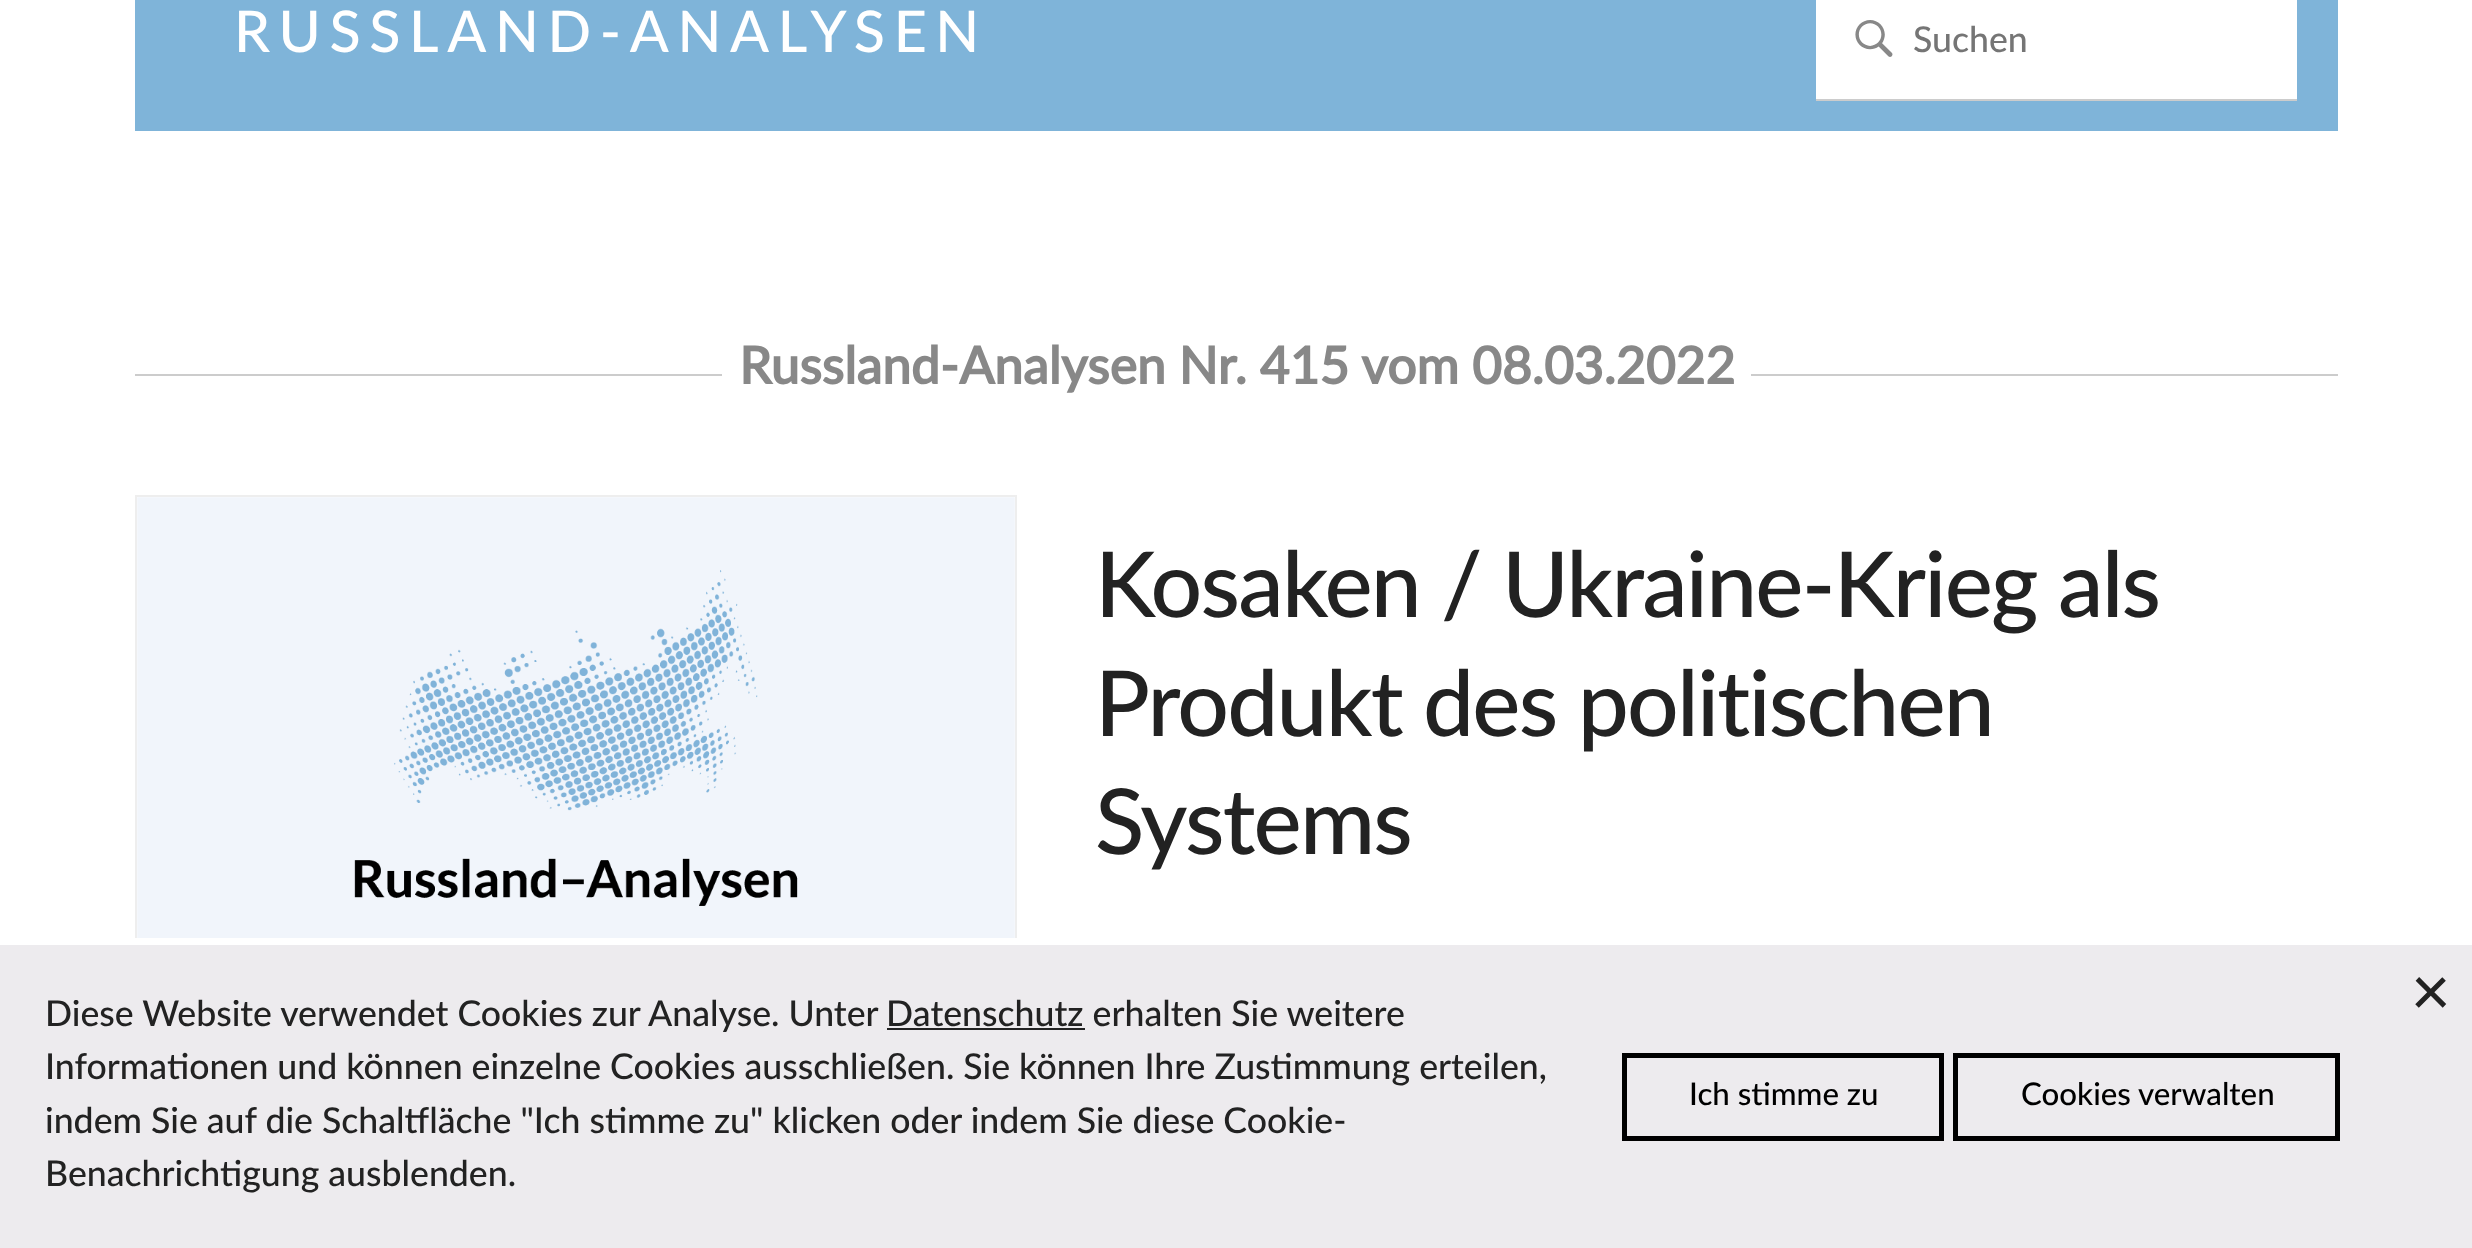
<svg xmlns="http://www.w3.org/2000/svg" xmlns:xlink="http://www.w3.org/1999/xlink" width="2472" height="1248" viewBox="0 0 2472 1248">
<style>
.cls-1{font:500 57.4px Lato;letter-spacing:8.6px;fill:#ffffff}
.cls-2{font:bold 51.5px Lato;fill:#888888}
.cls-3{font:500 91px Lato;letter-spacing:-1.8px;fill:#222222}
.cls-4{font:500 35.65px Lato;fill:#757575}
.cls-5{font:500 68px Lato;fill:#222222}
.cls-6{font:500 35.65px Lato;fill:#222222}
.cls-7{font:500 31.25px Lato;fill:#000000}
</style>
<rect width="100%" height="100%" fill="#ffffff"/>
<rect fill="#7fb4d9" x="135" y="0" width="2203" height="131"/>
<rect fill="#cccccc" x="135" y="374" width="2203" height="2"/>
<rect fill="#ffffff" x="722" y="374" width="1029" height="2"/>
<rect fill="none" stroke="#eeeeee" stroke-width="2" x="136" y="496" width="880" height="484"/>
<image xlink:href="image0.png" x="137" y="497" width="878" height="441"/>
<rect fill="#ffffff" x="1816" y="0" width="481" height="99"/>
<rect fill="#cccccc" x="1816" y="99" width="481" height="2"/>
<image xlink:href="image1.png" x="1855" y="20" width="38" height="37"/>
<rect fill="#edebee" x="0" y="945" width="2472" height="303"/>
<rect fill="#ffffff" x="135" y="938" width="882" height="7"/>
<rect fill="#222222" x="887" y="1028" width="198" height="2"/>
<rect fill="none" stroke="#000000" stroke-width="5" x="1624.5" y="1055.5" width="317" height="83"/>
<rect fill="none" stroke="#000000" stroke-width="5" x="1955.5" y="1055.5" width="382" height="83"/>
<text class="cls-1" x="234" y="52">RUSSLAND-ANALYSEN</text>
<text class="cls-2" x="739" y="384">Russland-Analysen Nr. 415 vom 08.03.2022</text>
<text class="cls-3"><tspan x="1095" y="617">Kosaken / Ukraine-Krieg als</tspan><tspan x="1095" y="736">Produkt des politischen</tspan><tspan x="1095" y="854">Systems</tspan></text>
<text class="cls-4" x="1913" y="52">Suchen</text>
<text class="cls-5" x="2411" y="1015">×</text>
<text class="cls-6" x="45" y="1026">Diese Website verwendet Cookies zur Analyse. Unter</text>
<text class="cls-6" x="886" y="1026">Datenschutz erhalten Sie weitere</text>
<text class="cls-6"><tspan x="45" y="1079">Informationen und können einzelne Cookies ausschließen. Sie können Ihre Zustimmung erteilen,</tspan><tspan x="45" y="1133">indem Sie auf die Schaltfläche "Ich stimme zu" klicken oder indem Sie diese Cookie-</tspan><tspan x="45" y="1186">Benachrichtigung ausblenden.</tspan></text>
<text class="cls-7" x="1689" y="1105">Ich stimme zu</text>
<text class="cls-7" x="2021" y="1105">Cookies verwalten</text>
</svg>
